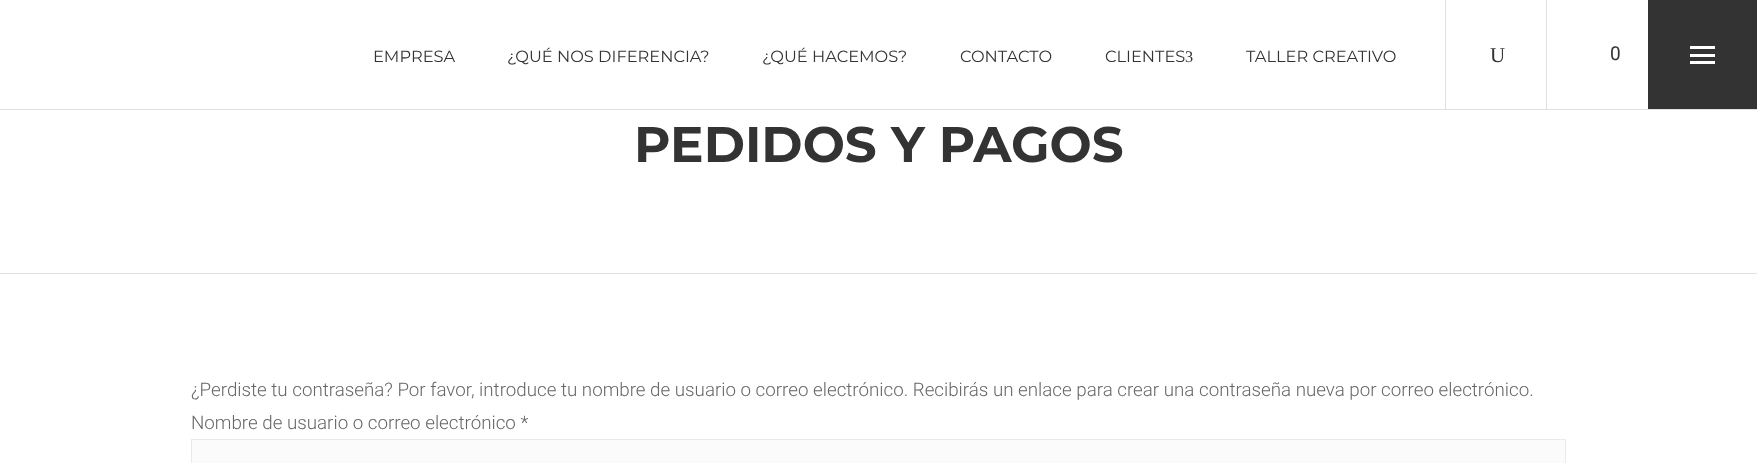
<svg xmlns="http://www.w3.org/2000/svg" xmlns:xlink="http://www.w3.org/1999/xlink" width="1757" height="463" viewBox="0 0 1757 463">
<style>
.cls-1{font:16.25px Montserrat;fill:#333333}
.cls-2{font:16.25px Liberation Serif;fill:#333333}
.cls-3{font:21px Liberation Serif;fill:#333333}
.cls-4{font:19px Roboto;fill:#333333}
.cls-5{font:bold 50px Montserrat;fill:#333333}
.cls-6{font:300 18.75px Roboto;fill:#666666}
</style>
<rect width="100%" height="100%" fill="#ffffff"/>
<rect fill="#e1e1e1" x="0" y="109" width="1757" height="1"/>
<rect fill="#e1e1e1" x="1445" y="0" width="1" height="109"/>
<rect fill="#e1e1e1" x="1546" y="0" width="1" height="109"/>
<rect fill="#333333" x="1648" y="0" width="109" height="109"/>
<rect fill="#ffffff" x="1690" y="46" width="25" height="3"/>
<rect fill="#ffffff" x="1690" y="54" width="25" height="3"/>
<rect fill="#ffffff" x="1690" y="61" width="25" height="3"/>
<rect fill="#e1e1e1" x="0" y="273" width="1757" height="1"/>
<rect fill="#fbfbfc" stroke="#eaeaea" x="191.5" y="439.5" width="1374" height="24"/>
<text class="cls-1" x="373" y="62">EMPRESA</text>
<text class="cls-1" x="507" y="62">¿QUÉ NOS DIFERENCIA?</text>
<text class="cls-1" x="762" y="62">¿QUÉ HACEMOS?</text>
<text class="cls-1" x="960" y="62">CONTACTO</text>
<text class="cls-1" x="1105" y="62">CLIENTES</text>
<text class="cls-2" x="1185" y="62">3</text>
<text class="cls-1" x="1246" y="62">TALLER CREATIVO</text>
<text class="cls-3" x="1490" y="62">U</text>
<text class="cls-4" x="1610" y="60">0</text>
<text class="cls-5" x="634" y="162">PEDIDOS Y PAGOS</text>
<text class="cls-6"><tspan x="191" y="396">¿Perdiste tu contraseña? Por favor, introduce tu nombre de usuario o correo electrónico. Recibirás un enlace para crear una contraseña nueva por correo electrónico.</tspan><tspan x="191" y="429">Nombre de usuario o correo electrónico *</tspan></text>
</svg>
